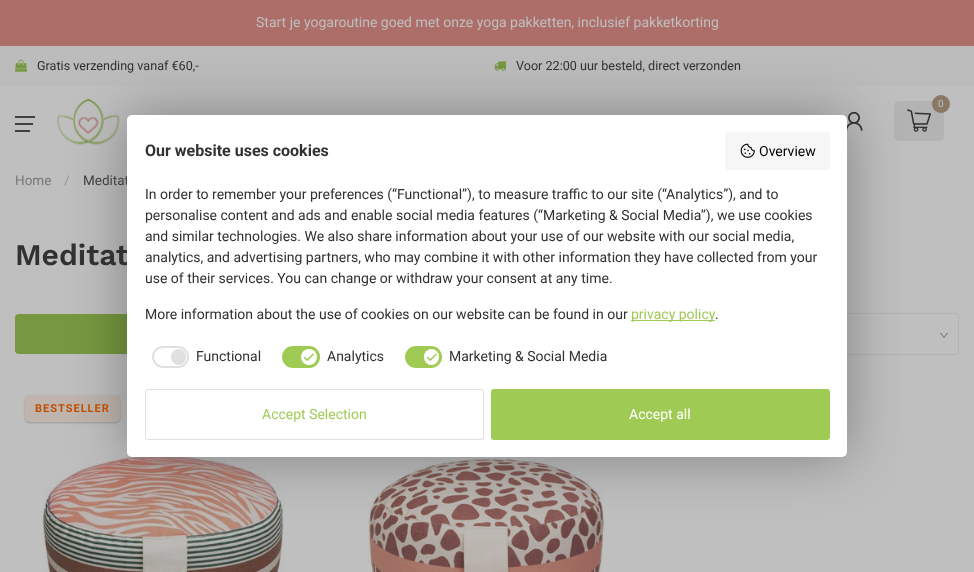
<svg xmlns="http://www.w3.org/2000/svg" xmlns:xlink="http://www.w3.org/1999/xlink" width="974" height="572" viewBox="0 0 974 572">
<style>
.cls-1{font:14px Roboto;fill:#bfbfbf}
.cls-2{font:12.6px Roboto;fill:#313131}
.cls-3{font:10px Roboto;fill:#bfbfbf}
.cls-4{font:13.5px Roboto;fill:#787878}
.cls-5{font:13.5px Roboto;fill:#959595}
.cls-6{font:13.5px Roboto;fill:#3f3f3f}
.cls-7{font:600 30px Work Sans;fill:#313131}
.cls-8{font:bold 11px Roboto;letter-spacing:1px;fill:#bf4d00}
.cls-9{font:bold 16px Roboto;fill:#313131}
.cls-10{font:14px Roboto;fill:#000000}
.cls-11{font:14px Roboto;fill:#313131}
.cls-12{font:14px Roboto;fill:#9fcb55}
.cls-13{font:14px Roboto;fill:#ffffff}
</style>
<rect width="100%" height="100%" fill="#bfbfbf"/>
<rect fill="#ad6e69" x="0" y="0" width="974" height="46"/>
<rect fill="#bcbcbc" x="0" y="46" width="974" height="40"/>
<image xlink:href="image0.png" x="15" y="59" width="12" height="13"/>
<image xlink:href="image1.png" x="494" y="61" width="12" height="10"/>
<rect fill="#404040" x="15" y="116" width="20" height="2"/>
<rect fill="#404040" x="15" y="123" width="18" height="2"/>
<rect fill="#404040" x="15" y="130" width="15" height="2"/>
<image xlink:href="image2.png" x="57" y="98" width="63" height="47"/>
<rect fill="#b3b3b3" x="894" y="101" width="50" height="40" rx="5"/>
<circle fill="#897864" cx="941" cy="104" r="9"/>
<image xlink:href="image3.png" x="907" y="109" width="24" height="23"/>
<image xlink:href="image4.png" x="847" y="111" width="16" height="20"/>
<rect fill="#779840" x="15" y="314" width="462" height="40" rx="4"/>
<path fill="none" stroke="#434343" stroke-width="0.7" d="M947.5 333L944 337.5L940.5 333"/>
<rect fill="none" stroke="#b3b3b3" x="497.5" y="313.5" width="461" height="41" rx="3.5"/>
<rect fill="#000000" fill-opacity="0.2" filter="blur(1px)" x="25" y="396" width="95" height="27" rx="5"/>
<rect fill="#bfb5ae" x="25" y="395" width="95" height="27" rx="5"/>
<image xlink:href="image5.png" x="42" y="454" width="243" height="118"/>
<image xlink:href="image6.png" x="367" y="457" width="238" height="115"/>
<rect fill="#000000" fill-opacity="0.33" filter="blur(28px)" x="127" y="115" width="720" height="342" rx="5"/>
<text class="cls-1" x="256" y="27">Start je yogaroutine goed met onze yoga pakketten, inclusief pakketkorting</text>
<text class="cls-2" x="37" y="70">Gratis verzending vanaf €60,-</text>
<text class="cls-2" x="516" y="70">Voor 22:00 uur besteld, direct verzonden</text>
<text class="cls-3" x="938" y="107">0</text>
<text class="cls-4" x="15" y="185">Home</text>
<text class="cls-5" x="64" y="185">/</text>
<text class="cls-6" x="83" y="185">Meditat</text>
<text class="cls-7" x="15" y="265">Meditat</text>
<text class="cls-8" x="35" y="412">BESTSELLER</text>
<rect fill="#ffffff" x="127" y="115" width="720" height="342" rx="5"/>
<text class="cls-9" x="145" y="156">Our website uses cookies</text>
<rect fill="#f6f6f6" x="725" y="132" width="105" height="38" rx="3"/>
<image xlink:href="image7.png" x="740" y="143" width="15" height="15"/>
<text class="cls-10" x="759" y="156">Overview</text>
<text class="cls-11"><tspan x="145" y="199">In order to remember your preferences (“Functional”), to measure traffic to our site (“Analytics”), and to</tspan><tspan x="145" y="220">personalise content and ads and enable social media features (“Marketing &amp; Social Media”), we use cookies</tspan><tspan x="145" y="241">and similar technologies. We also share information about your use of our website with our social media,</tspan><tspan x="145" y="262">analytics, and advertising partners, who may combine it with other information they have collected from your</tspan><tspan x="145" y="283">use of their services. You can change or withdraw your consent at any time.</tspan></text>
<text class="cls-11" x="145" y="319">More information about the use of cookies on our website can be found in our</text>
<rect fill="#9fcb55" x="631" y="320" width="84" height="1"/>
<text class="cls-12" x="631" y="319">privacy policy</text>
<text class="cls-11" x="715" y="319">.</text>
<rect fill="none" stroke="#e0e0e0" stroke-width="2" x="153" y="347" width="35" height="20" rx="10"/>
<rect fill="#e0e0e0" x="171" y="349" width="15" height="16" rx="7.5"/>
<text class="cls-11" x="196" y="361">Functional</text>
<rect fill="#9fcb55" stroke="#9fcb55" stroke-width="2" x="283" y="347" width="36" height="20" rx="10"/>
<circle fill="#ffffff" cx="309" cy="357" r="8"/>
<image xlink:href="image8.png" x="303" y="353" width="11" height="8"/>
<text class="cls-11" x="327" y="361">Analytics</text>
<rect fill="#9fcb55" stroke="#9fcb55" stroke-width="2" x="406" y="347" width="35" height="20" rx="10"/>
<rect fill="#ffffff" x="424" y="349" width="15" height="16" rx="7.5"/>
<image xlink:href="image8.png" x="426" y="353" width="11" height="8"/>
<text class="cls-11" x="449" y="361">Marketing &amp; Social Media</text>
<rect fill="none" stroke="#e0e0e0" x="145.5" y="389.5" width="338" height="50" rx="2.5"/>
<text class="cls-12" x="262" y="419">Accept Selection</text>
<rect fill="#9fcb55" x="491" y="389" width="339" height="51" rx="3"/>
<text class="cls-13" x="629" y="419">Accept all</text>
</svg>
